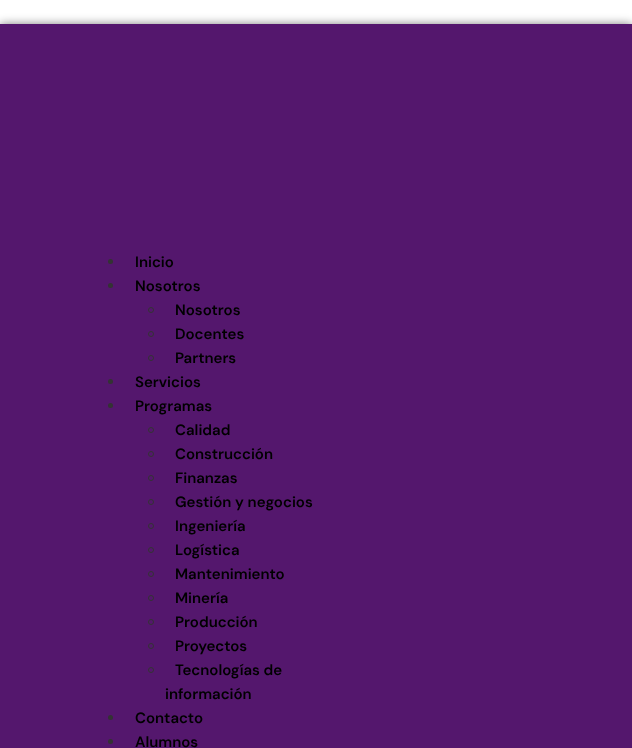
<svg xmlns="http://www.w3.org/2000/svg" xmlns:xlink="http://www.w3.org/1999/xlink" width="632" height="748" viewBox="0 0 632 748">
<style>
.cls-1{font:600 15px DM Sans;fill:#000000}
</style>
<rect width="100%" height="100%" fill="#ffffff"/>
<rect fill="#000000" fill-opacity="0.5" filter="blur(5px)" x="0" y="24" width="632" height="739"/>
<rect fill="#54176d" x="0" y="24" width="632" height="724"/>
<circle fill="#333333" cx="110.5" cy="261.5" r="2.5"/>
<circle fill="#333333" cx="110.5" cy="285.5" r="2.5"/>
<circle fill="none" stroke="#333333" cx="151" cy="310" r="2.5"/>
<circle fill="none" stroke="#333333" cx="151" cy="334" r="2.5"/>
<circle fill="none" stroke="#333333" cx="151" cy="358" r="2.5"/>
<circle fill="#333333" cx="110.5" cy="381.5" r="2.5"/>
<circle fill="#333333" cx="110.5" cy="405.5" r="2.5"/>
<circle fill="none" stroke="#333333" cx="151" cy="430" r="2.5"/>
<circle fill="none" stroke="#333333" cx="151" cy="454" r="2.5"/>
<circle fill="none" stroke="#333333" cx="151" cy="478" r="2.5"/>
<circle fill="none" stroke="#333333" cx="151" cy="502" r="2.5"/>
<circle fill="none" stroke="#333333" cx="151" cy="526" r="2.5"/>
<circle fill="none" stroke="#333333" cx="151" cy="550" r="2.5"/>
<circle fill="none" stroke="#333333" cx="151" cy="574" r="2.5"/>
<circle fill="none" stroke="#333333" cx="151" cy="598" r="2.5"/>
<circle fill="none" stroke="#333333" cx="151" cy="622" r="2.5"/>
<circle fill="none" stroke="#333333" cx="151" cy="646" r="2.5"/>
<circle fill="none" stroke="#333333" cx="151" cy="670" r="2.5"/>
<circle fill="#333333" cx="110.5" cy="717.5" r="2.5"/>
<circle fill="#333333" cx="110.5" cy="741.5" r="2.5"/>
<text class="cls-1"><tspan x="135" y="267">Inicio</tspan><tspan x="135" y="291">Nosotros</tspan></text>
<text class="cls-1"><tspan x="175" y="315">Nosotros</tspan><tspan x="175" y="339">Docentes</tspan><tspan x="175" y="363">Partners</tspan></text>
<text class="cls-1"><tspan x="135" y="387">Servicios</tspan><tspan x="135" y="411">Programas</tspan></text>
<text class="cls-1"><tspan x="175" y="435">Calidad</tspan><tspan x="175" y="459">Construcción</tspan><tspan x="175" y="483">Finanzas</tspan><tspan x="175" y="507">Gestión y negocios</tspan><tspan x="175" y="531">Ingeniería</tspan><tspan x="175" y="555">Logística</tspan><tspan x="175" y="579">Mantenimiento</tspan><tspan x="175" y="603">Minería</tspan><tspan x="175" y="627">Producción</tspan><tspan x="175" y="651">Proyectos</tspan><tspan x="175" y="675">Tecnologías de</tspan></text>
<text class="cls-1" x="165" y="699">información</text>
<text class="cls-1"><tspan x="135" y="723">Contacto</tspan><tspan x="135" y="747">Alumnos</tspan></text>
</svg>
